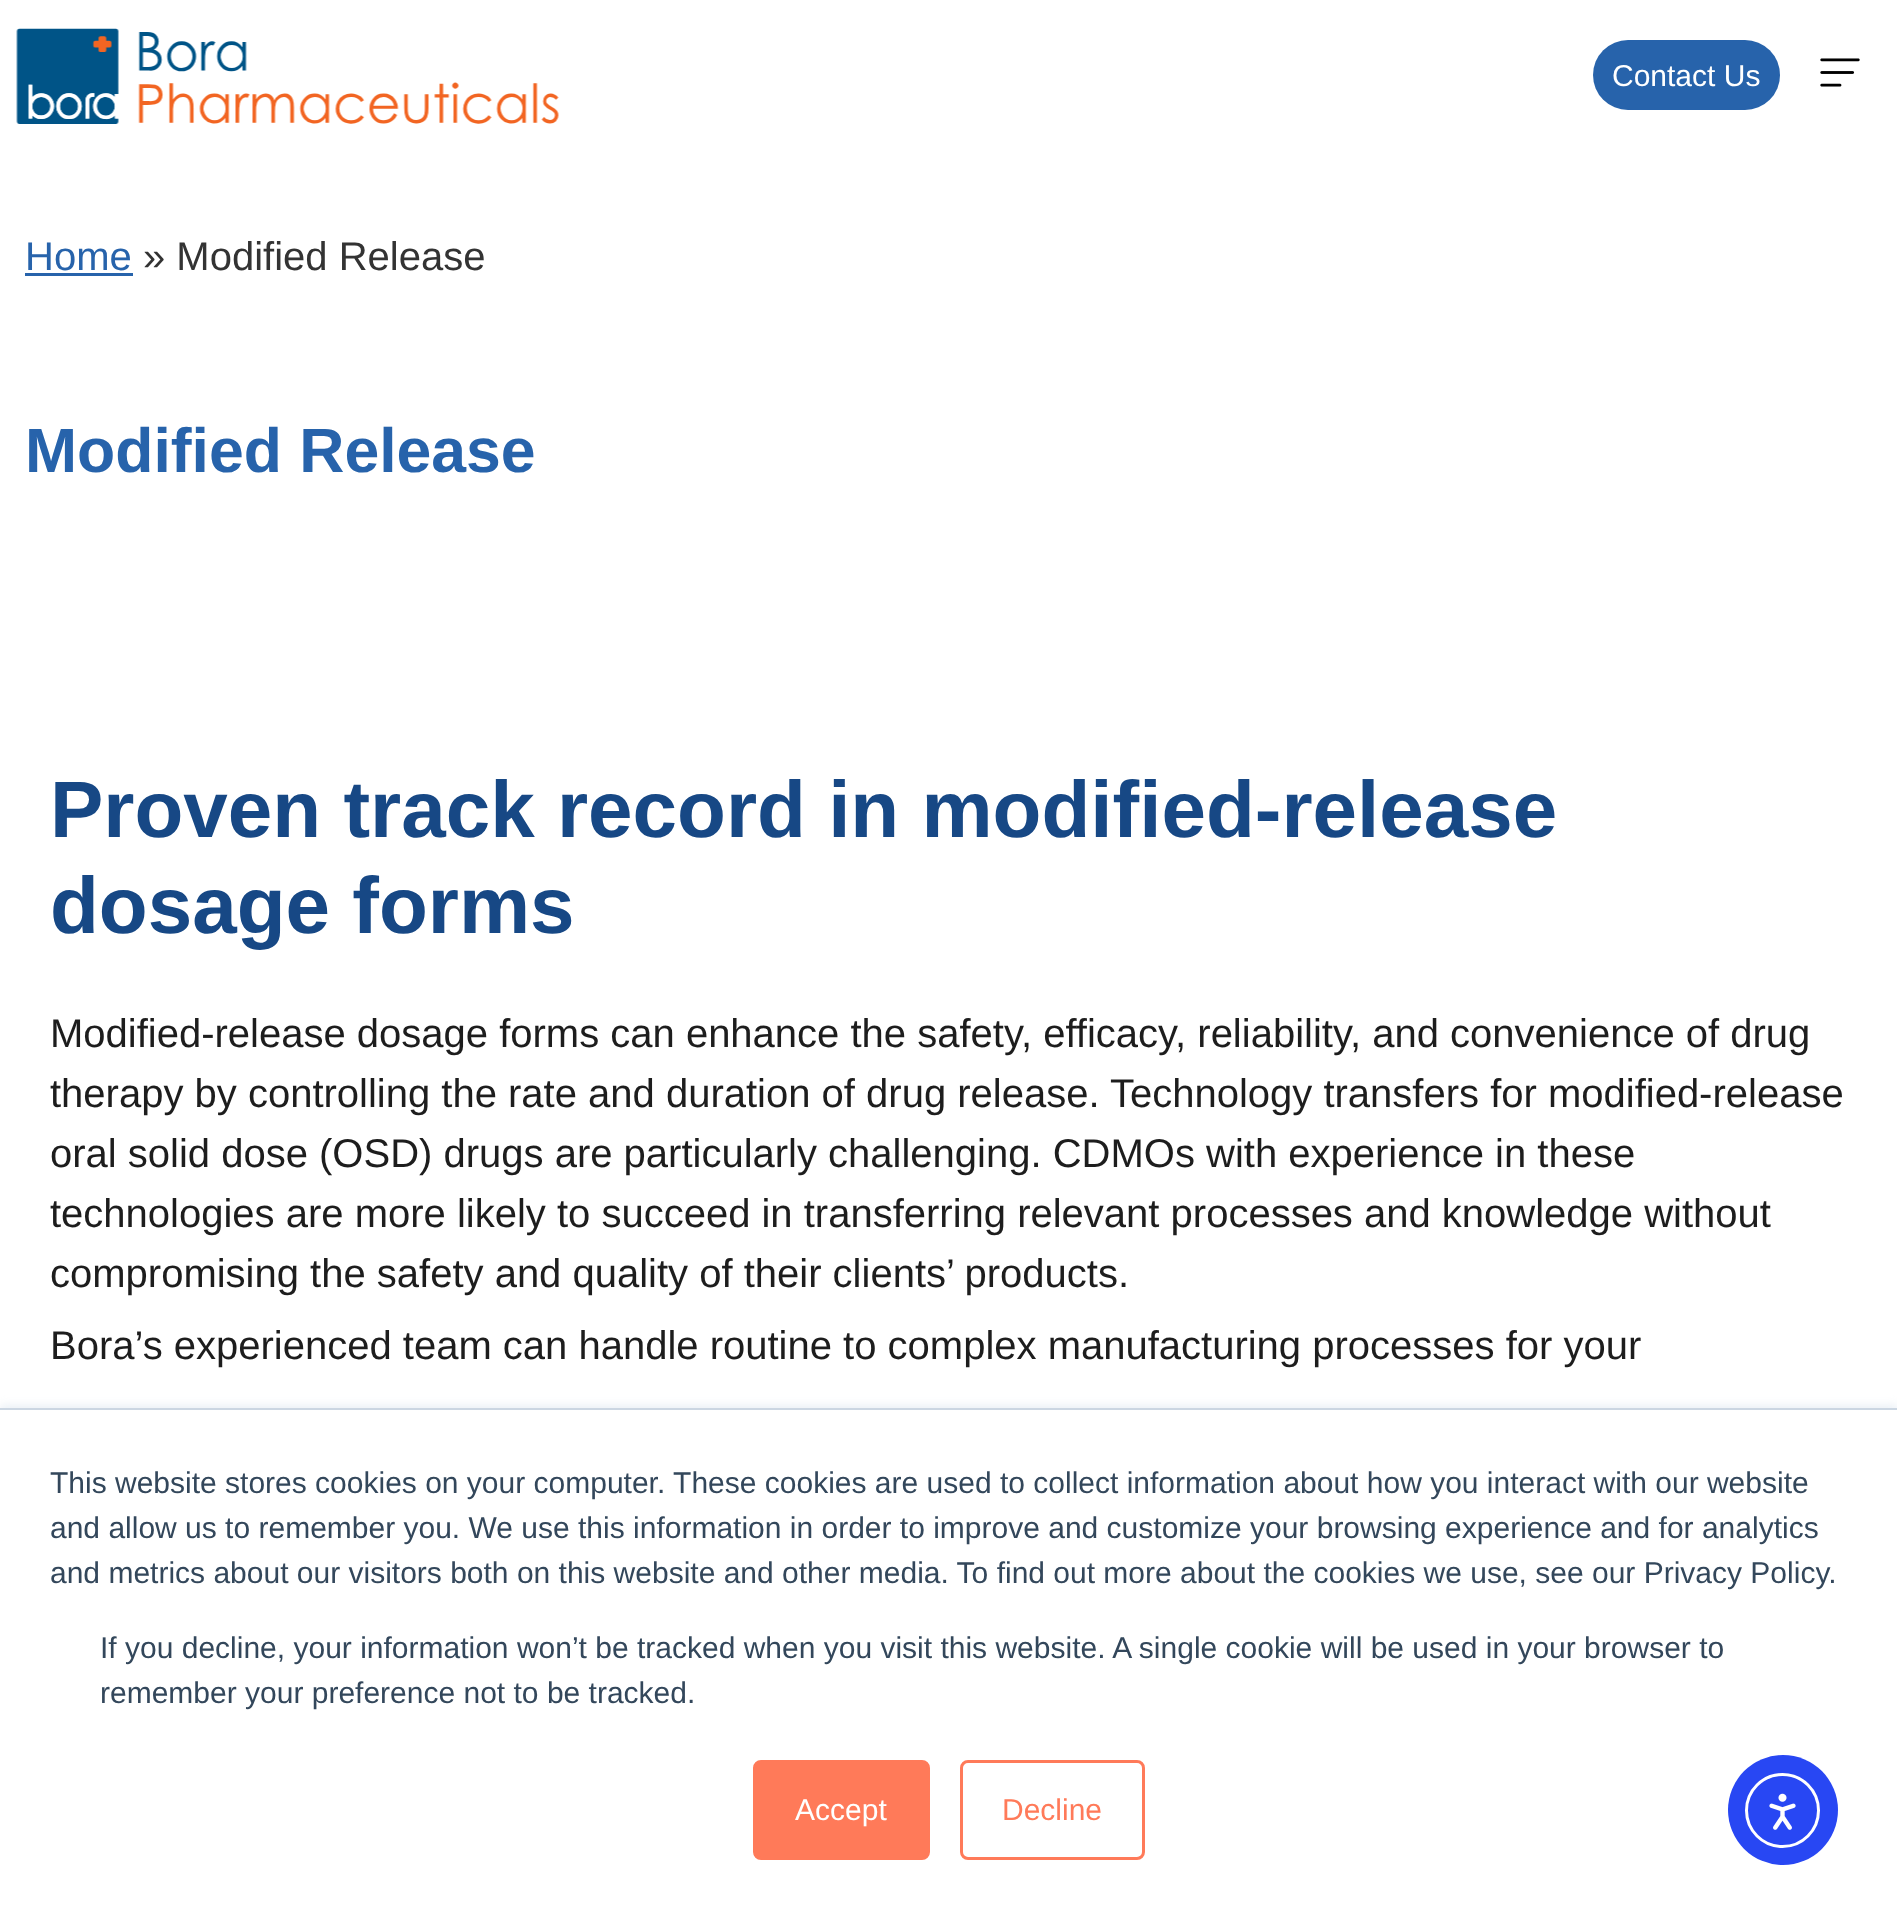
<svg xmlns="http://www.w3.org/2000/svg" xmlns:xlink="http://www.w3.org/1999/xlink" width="1897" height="1924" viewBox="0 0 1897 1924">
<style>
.cls-1{font:30px Liberation Sans;fill:#ffffff}
.cls-2{font:40px Liberation Sans;fill:#2763ab}
.cls-3{font:40px Liberation Sans;fill:#333333}
.cls-4{font:bold 62.5px Liberation Sans;fill:#2763ab}
.cls-5{font:bold 80px Liberation Sans;fill:#174885}
.cls-6{font:40px Liberation Sans;fill:#1d1d1d}
.cls-7{font:30px Liberation Sans;fill:#33475b}
.cls-8{font:30px Liberation Sans;fill:#ff7a59}
</style>
<rect width="100%" height="100%" fill="#ffffff"/>
<image xlink:href="image0.png" x="16" y="28" width="543" height="96"/>
<rect fill="#2763ab" x="1593" y="40" width="187" height="70" rx="35"/>
<image xlink:href="image1.png" x="1820" y="58" width="40" height="29"/>
<rect fill="#2763ab" x="25" y="273" width="108" height="3"/>
<rect fill="#eaf0f6" filter="blur(4px)" x="0" y="1405" width="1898" height="518"/>
<rect fill="#cbd6e2" x="0" y="1408" width="1897" height="2"/>
<rect fill="#ffffff" x="0" y="1410" width="1897" height="514"/>
<rect fill="#ff7a59" stroke="#ff7a59" stroke-width="3" x="754.5" y="1761.5" width="174" height="97" rx="6.5"/>
<rect fill="none" stroke="#ff7a59" stroke-width="3" x="961.5" y="1761.5" width="182" height="97" rx="6.5"/>
<circle fill="#2847f3" cx="1783" cy="1810" r="55"/>
<circle fill="none" stroke="#ffffff" stroke-width="3" cx="1782.5" cy="1810.5" r="36"/>
<image xlink:href="image2.png" x="1769" y="1793" width="27" height="37"/>
<text class="cls-1" x="1612" y="86">Contact Us</text>
<text class="cls-2" x="25" y="270">Home</text>
<text class="cls-3" x="143" y="270">» Modified Release</text>
<text class="cls-4" x="25" y="472">Modified Release</text>
<text class="cls-5"><tspan x="50" y="837">Proven track record in modified-release</tspan><tspan x="50" y="933">dosage forms</tspan></text>
<text class="cls-6"><tspan x="50" y="1047">Modified-release dosage forms can enhance the safety, efficacy, reliability, and convenience of drug</tspan><tspan x="50" y="1107">therapy by controlling the rate and duration of drug release. Technology transfers for modified-release</tspan><tspan x="50" y="1167">oral solid dose (OSD) drugs are particularly challenging. CDMOs with experience in these</tspan><tspan x="50" y="1227">technologies are more likely to succeed in transferring relevant processes and knowledge without</tspan><tspan x="50" y="1287">compromising the safety and quality of their clients’ products.</tspan><tspan x="50" y="1359">Bora’s experienced team can handle routine to complex manufacturing processes for your</tspan></text>
<text class="cls-7"><tspan x="50" y="1493">This website stores cookies on your computer. These cookies are used to collect information about how you interact with our website</tspan><tspan x="50" y="1538">and allow us to remember you. We use this information in order to improve and customize your browsing experience and for analytics</tspan><tspan x="50" y="1583">and metrics about our visitors both on this website and other media. To find out more about the cookies we use, see our Privacy Policy.</tspan></text>
<text class="cls-7"><tspan x="100" y="1658">If you decline, your information won’t be tracked when you visit this website. A single cookie will be used in your browser to</tspan><tspan x="100" y="1703">remember your preference not to be tracked.</tspan></text>
<text class="cls-1" x="795" y="1820">Accept</text>
<text class="cls-8" x="1002" y="1820">Decline</text>
</svg>
